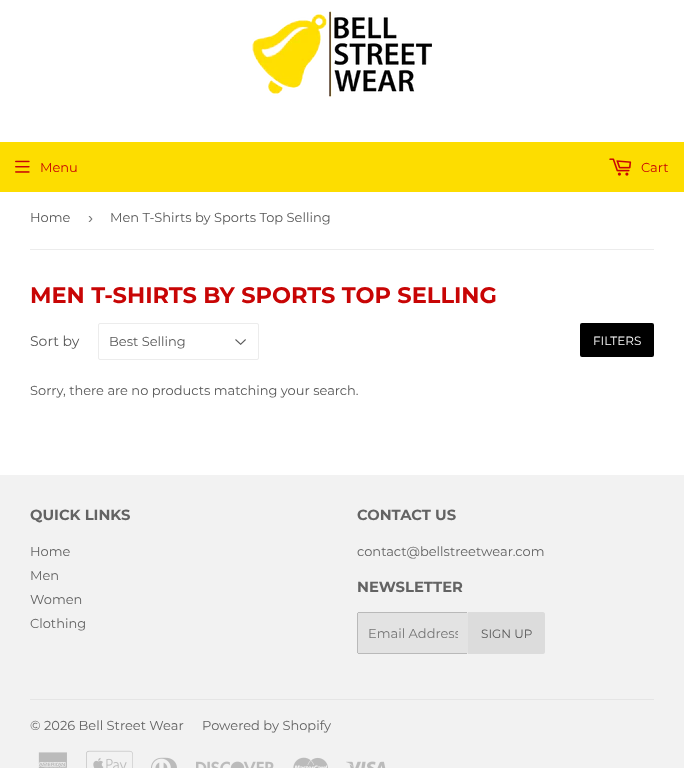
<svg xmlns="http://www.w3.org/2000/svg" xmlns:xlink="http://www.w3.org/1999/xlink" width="684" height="768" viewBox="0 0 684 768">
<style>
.cls-1{font:13px Montserrat;fill:#c80505}
.cls-2{font:13px Montserrat;fill:#585858}
.cls-3{font:15px Liberation Sans;fill:#767676}
.cls-4{font:bold 22.5px Montserrat;fill:#c80505}
.cls-5{font:14px Montserrat;fill:#585858}
.cls-6{font:12px Montserrat;fill:#ffffff}
.cls-7{font:bold 14.75px Montserrat;fill:#636363}
.cls-8{font:13px Montserrat;fill:#636363}
.cls-9{font:13px Montserrat;fill:#767676}
.cls-10{font:12px Montserrat;fill:#585858}
</style>
<defs>
<clipPath id="clip1"><rect x="368" y="625" width="90" height="16"/></clipPath>
</defs>
<rect width="100%" height="100%" fill="#ffffff"/>
<image xlink:href="image0.png" x="252" y="11" width="180" height="86"/>
<rect fill="#fddd00" x="0" y="142" width="684" height="50"/>
<image xlink:href="image1.png" x="15" y="160" width="15" height="13"/>
<image xlink:href="image2.png" x="609" y="158" width="23" height="18"/>
<rect fill="#ececec" x="30" y="249" width="624" height="1"/>
<image xlink:href="image3.png" x="235" y="339" width="11" height="6"/>
<rect fill="none" stroke="#ececec" x="98.5" y="323.5" width="160" height="36" rx="1.5"/>
<rect fill="#000000" x="580" y="323" width="74" height="34" rx="2"/>
<rect fill="#f2f2f2" x="0" y="475" width="684" height="293"/>
<rect fill="#e3e3e3" x="357" y="612" width="111" height="42" rx="2"/>
<rect fill="#b9b9b9" x="358" y="612" width="109" height="1"/>
<rect fill="#b9b9b9" x="358" y="653" width="109" height="1"/>
<rect fill="#b9b9b9" x="357" y="613" width="1" height="40"/>
<path fill="#dcdcdc" d="M468 612H543C544 612 545 613 545 614V652C545 653 544 654 543 654H468Z"/>
<rect fill="#e5e5e5" x="30" y="699" width="624" height="1"/>
<image xlink:href="image4.png" x="38" y="752" width="29" height="16"/>
<image xlink:href="image5.png" x="86" y="750" width="47" height="18"/>
<image xlink:href="image6.png" x="151" y="757" width="26" height="11"/>
<image xlink:href="image7.png" x="196" y="761" width="78" height="7"/>
<image xlink:href="image8.png" x="293" y="757" width="35" height="11"/>
<image xlink:href="image9.png" x="346" y="761" width="40" height="7"/>
<text class="cls-1" x="40" y="172">Menu</text>
<text class="cls-1" x="641" y="172">Cart</text>
<text class="cls-2" x="30" y="222">Home</text>
<text class="cls-3" x="88" y="223">›</text>
<text class="cls-2" x="110" y="222">Men T-Shirts by Sports Top Selling</text>
<text class="cls-4" x="30" y="303">MEN T-SHIRTS BY SPORTS TOP SELLING</text>
<text class="cls-5" x="30" y="346">Sort by</text>
<text class="cls-2" x="109" y="346">Best Selling</text>
<text class="cls-6" x="593" y="345">FILTERS</text>
<text class="cls-2" x="30" y="395">Sorry, there are no products matching your search.</text>
<text class="cls-7" x="30" y="520">QUICK LINKS</text>
<text class="cls-8"><tspan x="30" y="556">Home</tspan><tspan x="30" y="580">Men</tspan><tspan x="30" y="604">Women</tspan><tspan x="30" y="628">Clothing</tspan></text>
<text class="cls-7" x="357" y="520">CONTACT US</text>
<text class="cls-8" x="357" y="556">contact@bellstreetwear.com</text>
<text class="cls-7" x="357" y="592">NEWSLETTER</text>
<g clip-path="url(#clip1)">
<text class="cls-9" x="368" y="638">Email Address</text>
</g>
<text class="cls-10" x="481" y="638">SIGN UP</text>
<text class="cls-8" x="30" y="730">© 2026 Bell Street Wear</text>
<text class="cls-8" x="202" y="730">Powered by Shopify</text>
</svg>
